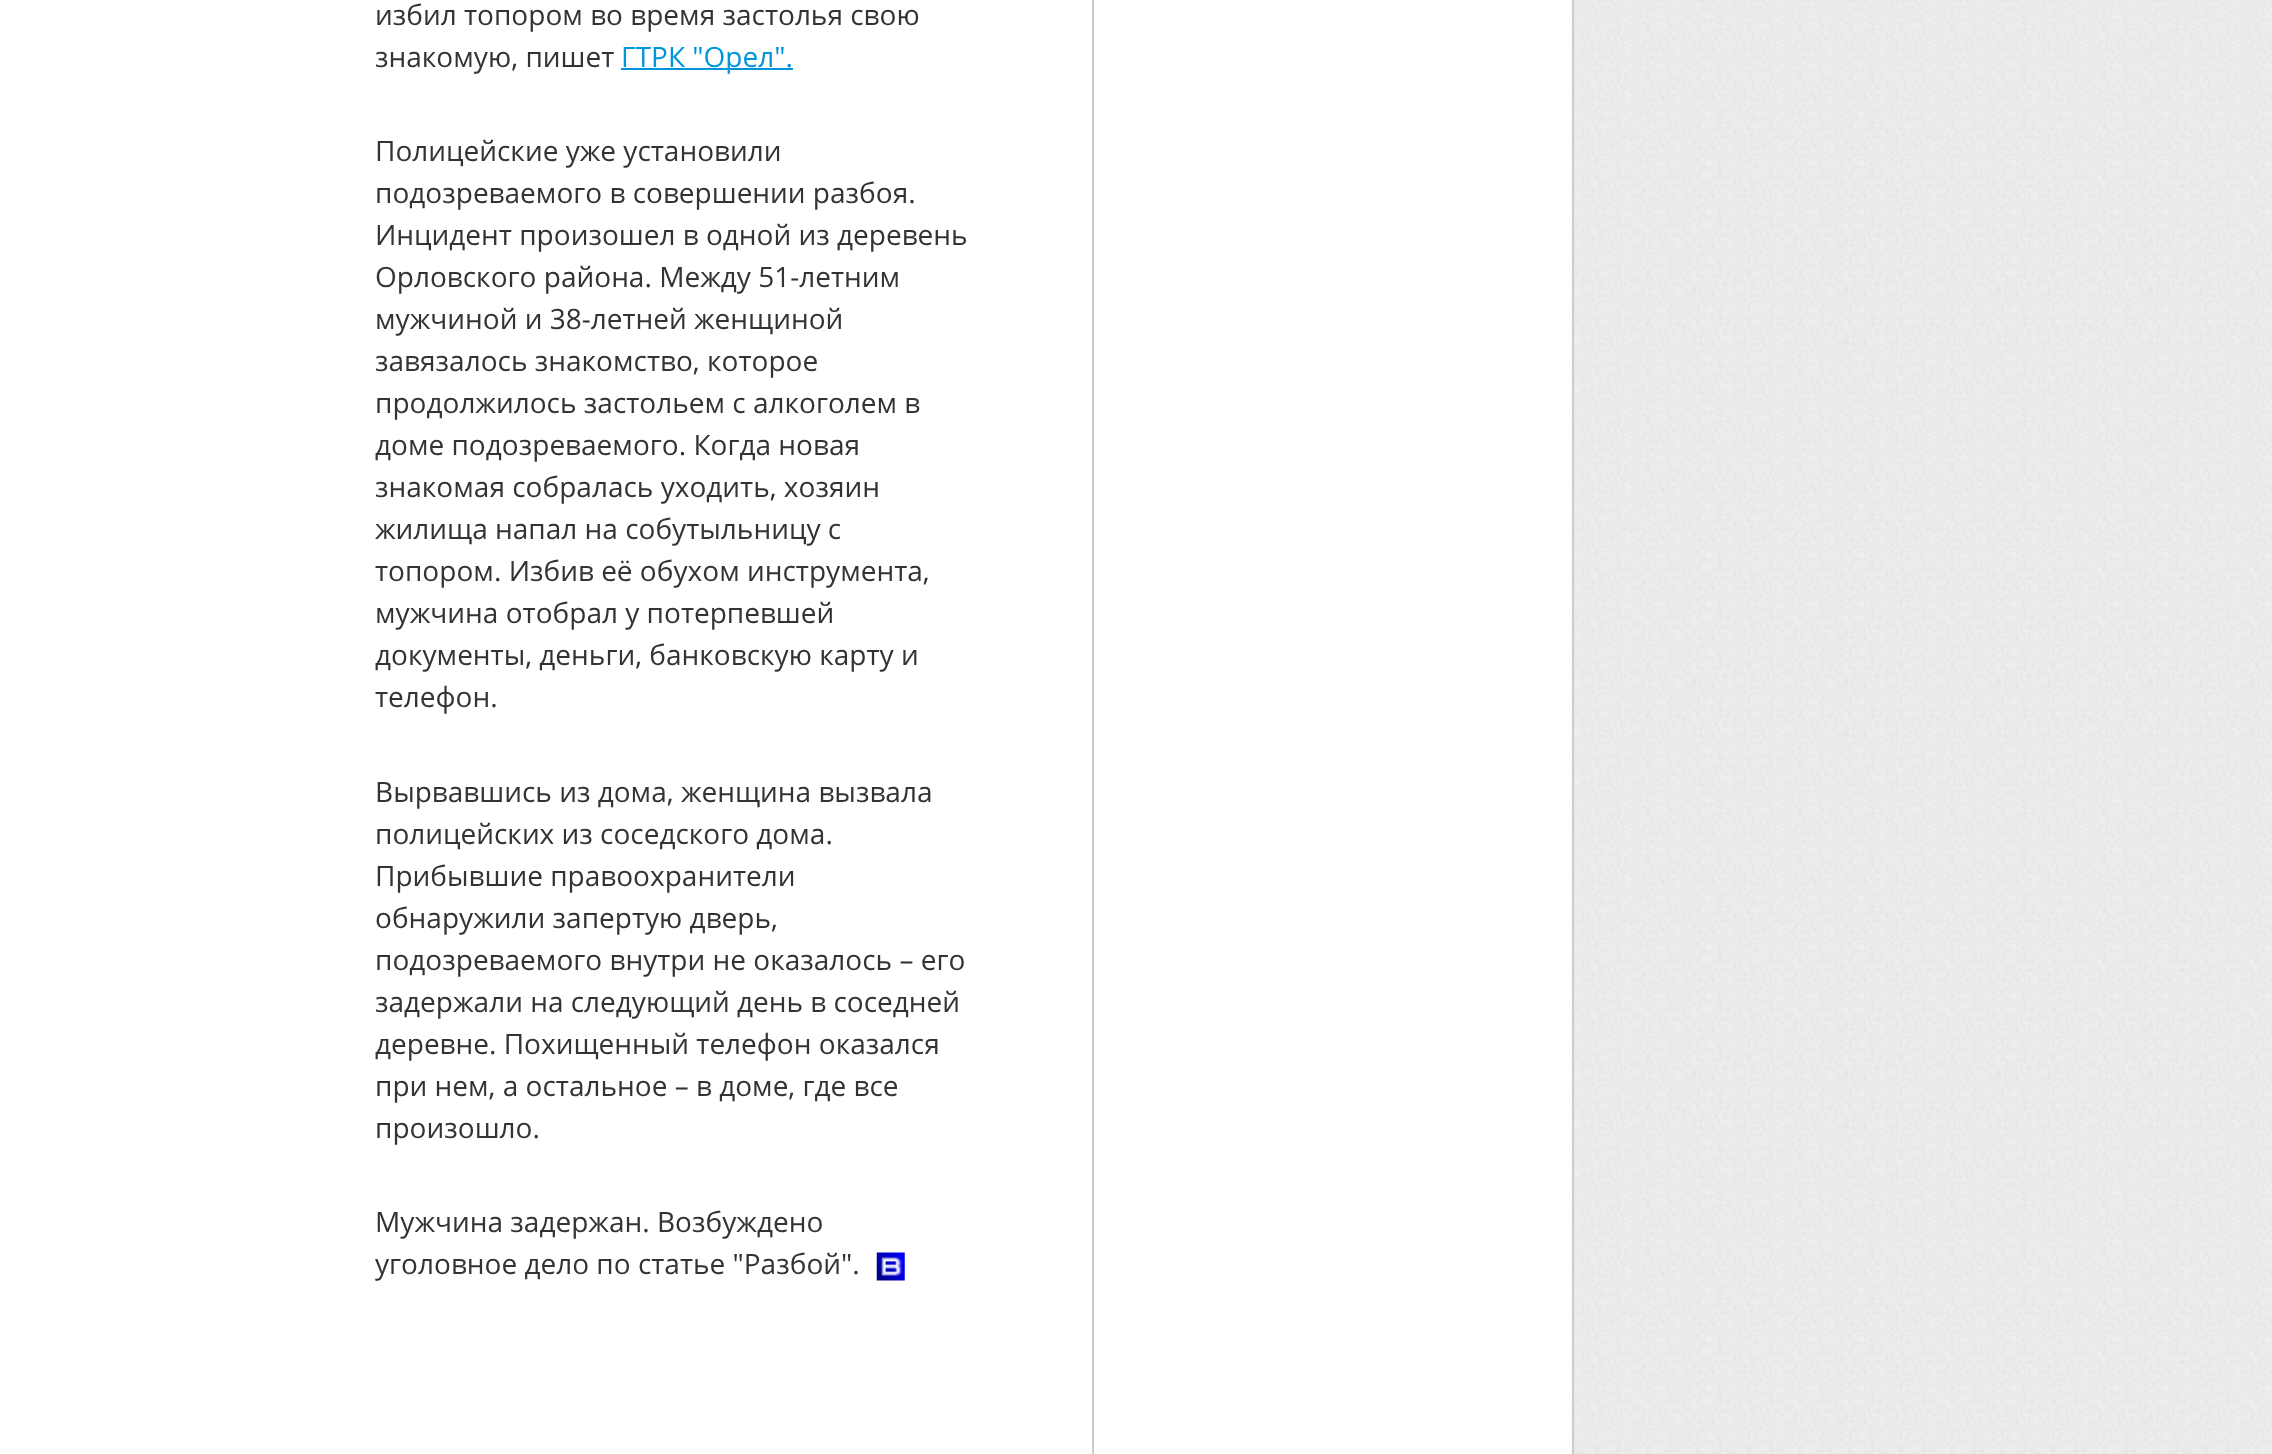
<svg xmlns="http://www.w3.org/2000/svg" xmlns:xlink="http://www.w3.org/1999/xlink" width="2272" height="1454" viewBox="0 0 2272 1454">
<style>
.cls-1{font:28px Open Sans;fill:#333333}
.cls-2{font:28px Open Sans;fill:#0095da}
</style>
<rect width="100%" height="100%" fill="#ffffff"/>
<image xlink:href="image0.png" x="1574" y="0" width="698" height="1454"/>
<rect fill="#cccccc" x="1572" y="0" width="2" height="1454"/>
<rect fill="#cccccc" x="1092" y="0" width="2" height="1454"/>
<rect fill="#0095da" x="621" y="68" width="172" height="2"/>
<image xlink:href="image1.png" x="876" y="1252" width="29" height="29"/>
<text class="cls-1"><tspan x="375" y="25">избил топором во время застолья свою</tspan><tspan x="375" y="67">знакомую, пишет</tspan></text>
<text class="cls-2" x="621" y="67">ГТРК "Орел".</text>
<text class="cls-1"><tspan x="375" y="161">Полицейские уже установили</tspan><tspan x="375" y="203">подозреваемого в совершении разбоя.</tspan><tspan x="375" y="245">Инцидент произошел в одной из деревень</tspan><tspan x="375" y="287">Орловского района. Между 51-летним</tspan><tspan x="375" y="329">мужчиной и 38-летней женщиной</tspan><tspan x="375" y="371">завязалось знакомство, которое</tspan><tspan x="375" y="413">продолжилось застольем с алкоголем в</tspan><tspan x="375" y="455">доме подозреваемого. Когда новая</tspan><tspan x="375" y="497">знакомая собралась уходить, хозяин</tspan><tspan x="375" y="539">жилища напал на собутыльницу с</tspan><tspan x="375" y="581">топором. Избив её обухом инструмента,</tspan><tspan x="375" y="623">мужчина отобрал у потерпевшей</tspan><tspan x="375" y="665">документы, деньги, банковскую карту и</tspan><tspan x="375" y="707">телефон.</tspan></text>
<text class="cls-1"><tspan x="375" y="802">Вырвавшись из дома, женщина вызвала</tspan><tspan x="375" y="844">полицейских из соседского дома.</tspan><tspan x="375" y="886">Прибывшие правоохранители</tspan><tspan x="375" y="928">обнаружили запертую дверь,</tspan><tspan x="375" y="970">подозреваемого внутри не оказалось – его</tspan><tspan x="375" y="1012">задержали на следующий день в соседней</tspan><tspan x="375" y="1054">деревне. Похищенный телефон оказался</tspan><tspan x="375" y="1096">при нем, а остальное – в доме, где все</tspan><tspan x="375" y="1138">произошло.</tspan></text>
<text class="cls-1"><tspan x="375" y="1232">Мужчина задержан. Возбуждено</tspan><tspan x="375" y="1274">уголовное дело по статье "Разбой".</tspan></text>
</svg>
